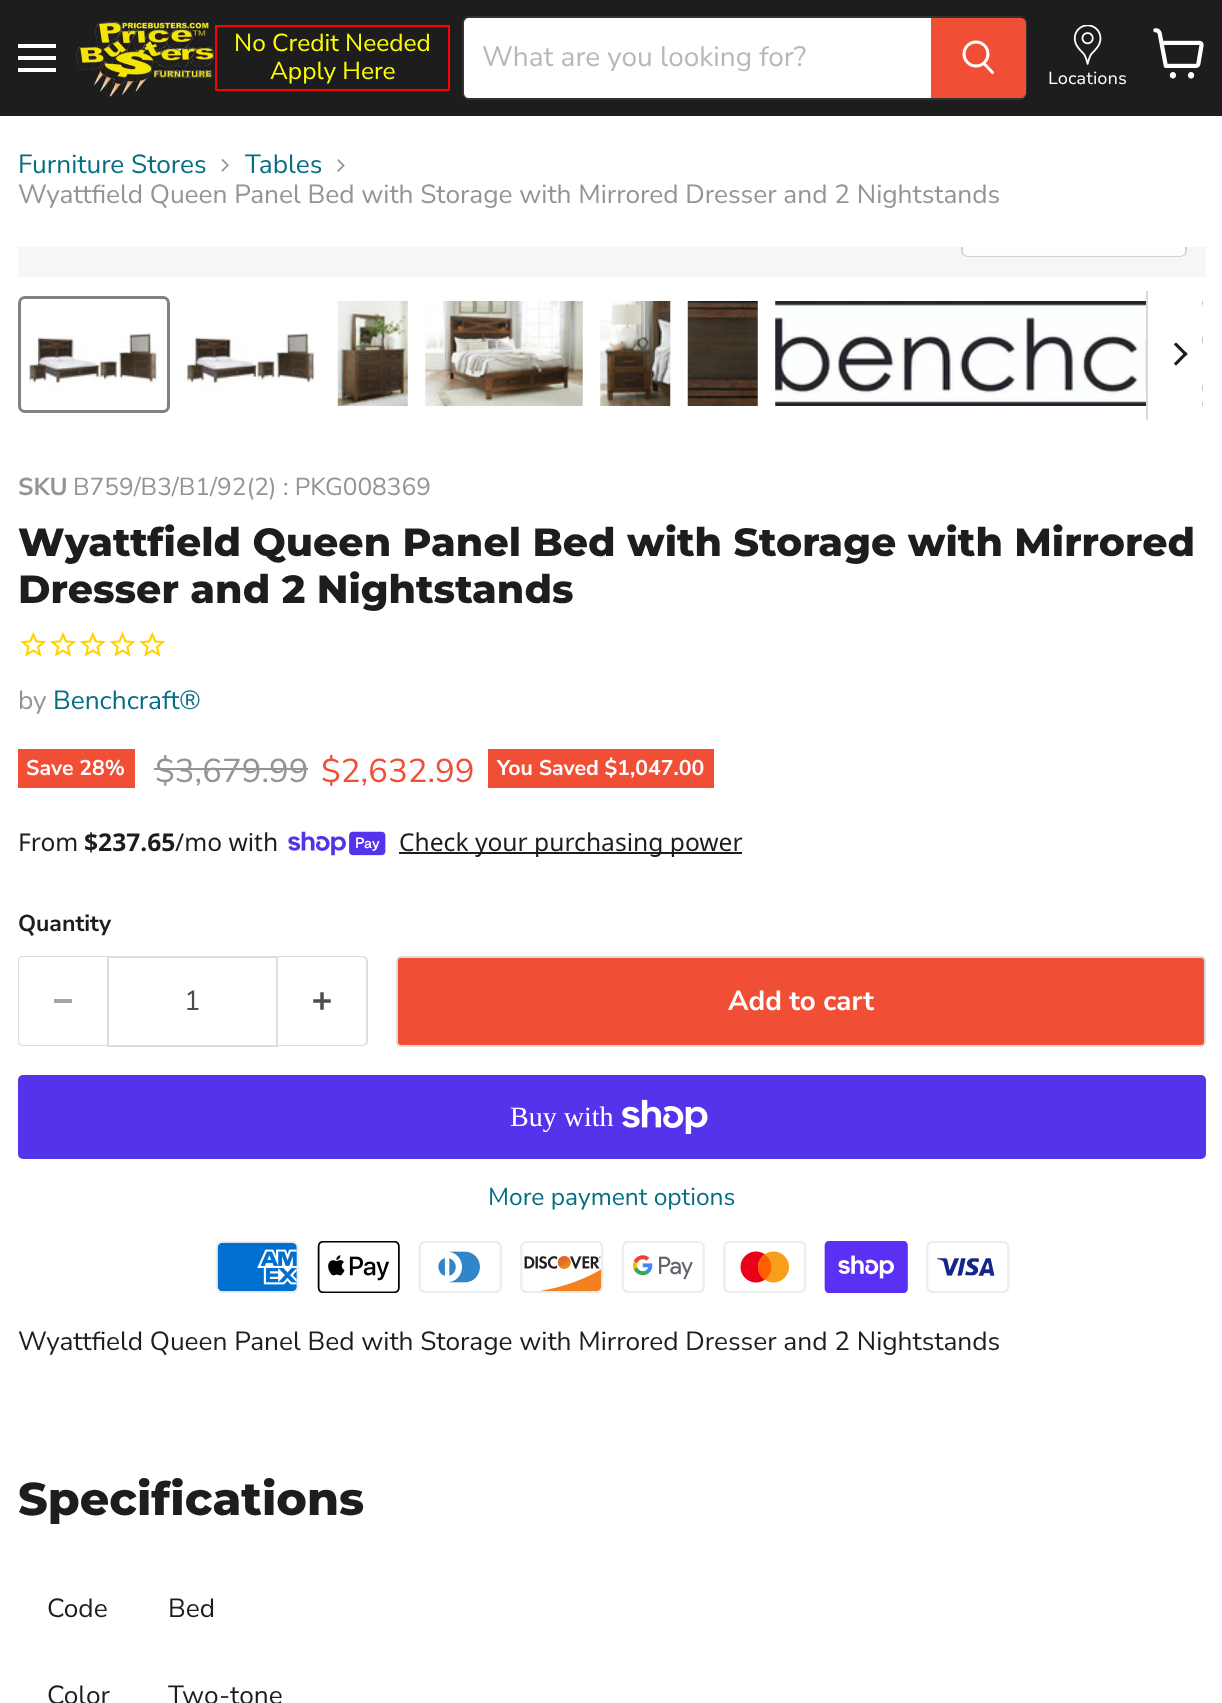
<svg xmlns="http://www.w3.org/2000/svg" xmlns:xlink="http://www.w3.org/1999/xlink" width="1222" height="1703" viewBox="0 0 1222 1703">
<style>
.cls-1{font:24.5px Nunito Sans;fill:#ffff00}
.cls-2{font:28px Nunito Sans;fill:#b8b8b8}
.cls-3{font:17.5px 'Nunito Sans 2';fill:#ffffff}
.cls-4{font:26.25px Nunito Sans;fill:#046e82}
.cls-5{font:26.25px Nunito Sans;fill:#949494}
.cls-6{font:bold 24.5px Nunito Sans;fill:#949494}
.cls-7{font:24.5px Nunito Sans;fill:#949494}
.cls-8{font:800 39.4px Montserrat;fill:#1d1d1d}
.cls-9{font:bold 21.25px Nunito Sans;fill:#ffffff}
.cls-10{font:33px Nunito Sans;fill:#949494}
.cls-11{font:33px Nunito Sans;fill:#f04f36}
.cls-12{font:24.6px Noto Sans;fill:#1d1d1d}
.cls-13{font:bold 24.6px Noto Sans;fill:#1d1d1d}
.cls-14{font:bold 23px Nunito Sans;fill:#1d1d1d}
.cls-15{font:27.75px Nunito Sans;fill:#4d4d4d}
.cls-16{font:bold 27.75px Nunito Sans;fill:#ffffff}
.cls-17{font:28px Liberation Serif;fill:#ffffff}
.cls-18{font:24.6px Nunito Sans;fill:#046e82}
.cls-19{font:26.25px Nunito Sans;fill:#1d1d1d}
.cls-20{font:800 46px Montserrat;fill:#1d1d1d}
</style>
<defs>
<clipPath id="clip1"><path d="M1173.5 367V342.5H1187.5V367Z"/></clipPath>
<clipPath id="clip2"><rect x="18" y="247" width="1188" height="30"/></clipPath>
</defs>
<rect width="100%" height="100%" fill="#ffffff"/>
<rect fill="#1d1d1d" x="0" y="0" width="1222" height="116"/>
<rect fill="#ffffff" x="18" y="44" width="38" height="4"/>
<rect fill="#ffffff" x="18" y="56" width="38" height="4"/>
<rect fill="#ffffff" x="18" y="68" width="38" height="4"/>
<image xlink:href="image0.png" x="75" y="21" width="140" height="76"/>
<rect fill="none" stroke="#ff0000" stroke-width="2" x="216" y="26" width="233" height="64"/>
<rect fill="none" stroke="#808080" stroke-opacity="0.2" stroke-width="2" x="463" y="17" width="563" height="82" rx="6"/>
<path fill="#ffffff" d="M469 18H931V98H469C466 98 464 96 464 93V23C464 20 466 18 469 18Z"/>
<path fill="#f04f36" stroke="#f04f36" stroke-width="2" d="M932 19H1021C1023 19 1025 21 1025 23V93C1025 95 1023 97 1021 97H932Z"/>
<path fill="none" stroke="#ffffff" stroke-width="3" stroke-linecap="round" d="M992.5 72.5L984.5 64"/>
<circle fill="none" stroke="#ffffff" stroke-width="3" cx="976" cy="54" r="12"/>
<image xlink:href="image1.png" x="1073" y="25" width="29" height="40"/>
<image xlink:href="image2.png" x="1153" y="28" width="51" height="51"/>
<image xlink:href="image3.png" x="221" y="159" width="8" height="13"/>
<image xlink:href="image4.png" x="337" y="159" width="8" height="13"/>
<rect fill="#f6f6f6" x="18" y="247" width="1188" height="30"/>
<image xlink:href="image11.png" x="775" y="301" width="428" height="105"/>
<rect fill="#ffffff" x="1148" y="301" width="54" height="105"/>
<rect fill="#d9d9d9" x="1146" y="291" width="2" height="129"/>
<g clip-path="url(#clip1)">
<path fill="none" stroke="#1d1d1d" stroke-width="3.1" stroke-linecap="square" d="M1185.5 354L1176 344.5"/>
</g>
<path fill="none" stroke="#1d1d1d" stroke-width="3.1" stroke-linecap="square" d="M1185.5 354L1176 363.5"/>
<rect fill="none" stroke="#818181" stroke-width="3" x="19.5" y="297.5" width="149" height="114" rx="5.5"/>
<image xlink:href="image5.png" x="29" y="331" width="129" height="59"/>
<image xlink:href="image6.png" x="187" y="333" width="128" height="57"/>
<image xlink:href="image7.png" x="337" y="301" width="71" height="105"/>
<image xlink:href="image8.png" x="425" y="301" width="158" height="105"/>
<image xlink:href="image9.png" x="600" y="301" width="71" height="105"/>
<image xlink:href="image10.png" x="687" y="301" width="71" height="105"/>
<image xlink:href="image12.png" x="20" y="631" width="27" height="26"/>
<image xlink:href="image13.png" x="50" y="632" width="26" height="25"/>
<image xlink:href="image14.png" x="79" y="631" width="27" height="26"/>
<image xlink:href="image15.png" x="109" y="631" width="27" height="26"/>
<image xlink:href="image12.png" x="139" y="631" width="27" height="26"/>
<rect fill="#f04f36" x="18" y="749" width="117" height="39"/>
<rect fill="#949494" x="154" y="768" width="154" height="2"/>
<rect fill="#f04f36" x="488" y="749" width="226" height="39"/>
<image xlink:href="image16.png" x="288" y="831" width="98" height="25"/>
<rect fill="#1d1d1d" x="399" y="852" width="343" height="2"/>
<path fill="#dddddd" fill-rule="evenodd" d="M23 956H107V1046H23C20 1046 18 1044 18 1041V961C18 958 20 956 23 956ZM23 957H107V1045H23C21 1045 19 1043 19 1041V961C19 959 21 957 23 957Z"/>
<rect fill="#a6a6a6" x="54" y="999" width="18" height="4"/>
<rect fill="none" stroke="#dddddd" stroke-width="2" x="108" y="957" width="169" height="89"/>
<path fill="#dddddd" fill-rule="evenodd" d="M278 956H362C365 956 368 958 368 961V1041C368 1044 365 1046 362 1046H278ZM278 957H362C364 957 366 959 366 961V1041C366 1043 364 1045 362 1045H278Z"/>
<image xlink:href="image17.png" x="313" y="992" width="18" height="18"/>
<rect fill="#f04f36" stroke="#dddddd" stroke-width="2" x="397" y="957" width="808" height="89" rx="4"/>
<rect fill="#5433eb" x="18" y="1075" width="1188" height="84" rx="5"/>
<image xlink:href="image18.png" x="622" y="1099" width="86" height="35"/>
<image xlink:href="image19.png" x="215" y="1241" width="84" height="52"/>
<image xlink:href="image20.png" x="317" y="1241" width="83" height="52"/>
<image xlink:href="image21.png" x="418" y="1241" width="84" height="52"/>
<image xlink:href="image22.png" x="520" y="1241" width="84" height="52"/>
<image xlink:href="image23.png" x="621" y="1241" width="84" height="52"/>
<image xlink:href="image24.png" x="723" y="1241" width="84" height="52"/>
<image xlink:href="image25.png" x="824" y="1241" width="84" height="52"/>
<image xlink:href="image26.png" x="926" y="1241" width="84" height="52"/>
<text class="cls-1" x="234" y="51">No Credit Needed</text>
<text class="cls-1" x="270" y="79">Apply Here</text>
<text class="cls-2" x="482" y="66">What are you looking for?</text>
<text class="cls-3" x="1048" y="84">Locations</text>
<text class="cls-4" x="18" y="173">Furniture Stores</text>
<text class="cls-4" x="245" y="173">Tables</text>
<text class="cls-5" x="18" y="203">Wyattfield Queen Panel Bed with Storage with Mirrored Dresser and 2 Nightstands</text>
<g clip-path="url(#clip2)">
<rect fill="none" stroke="#d1d1d1" stroke-width="2" x="962" y="208" width="224" height="48" rx="6"/>
</g>
<path fill="#ffffff" fill-opacity="0.9" d="M963 247H1185V251C1185 254 1183 256 1180 256H968C965 256 963 254 963 251Z"/>
<text class="cls-6" x="18" y="495">SKU</text>
<text class="cls-7" x="73" y="495">B759/B3/B1/92(2) : PKG008369</text>
<text class="cls-8"><tspan x="18" y="556">Wyattfield Queen Panel Bed with Storage with Mirrored</tspan><tspan x="18" y="603">Dresser and 2 Nightstands</tspan></text>
<text class="cls-5" x="18" y="709">by</text>
<text class="cls-4" x="53" y="709">Benchcraft®</text>
<text class="cls-9" x="26" y="775">Save 28%</text>
<text class="cls-10" x="155" y="782">$3,679.99</text>
<text class="cls-11" x="321" y="782">$2,632.99</text>
<text class="cls-9" x="497" y="775">You Saved $1,047.00</text>
<text class="cls-12" x="18" y="851">From</text>
<text class="cls-13" x="84" y="851">$237.65</text>
<text class="cls-12" x="175" y="851">/mo with</text>
<text class="cls-12" x="399" y="851">Check your purchasing power</text>
<text class="cls-14" x="18" y="931">Quantity</text>
<text class="cls-15" x="184" y="1010">1</text>
<text class="cls-16" x="728" y="1010">Add to cart</text>
<text class="cls-17" x="510" y="1126">Buy with</text>
<text class="cls-18" x="488" y="1205">More payment options</text>
<text class="cls-19" x="18" y="1350">Wyattfield Queen Panel Bed with Storage with Mirrored Dresser and 2 Nightstands</text>
<text class="cls-20" x="18" y="1515">Specifications</text>
<text class="cls-19" x="47" y="1617">Code</text>
<text class="cls-19" x="168" y="1617">Bed</text>
<text class="cls-19" x="47" y="1704">Color</text>
<text class="cls-19" x="168" y="1704">Two-tone</text>
</svg>
